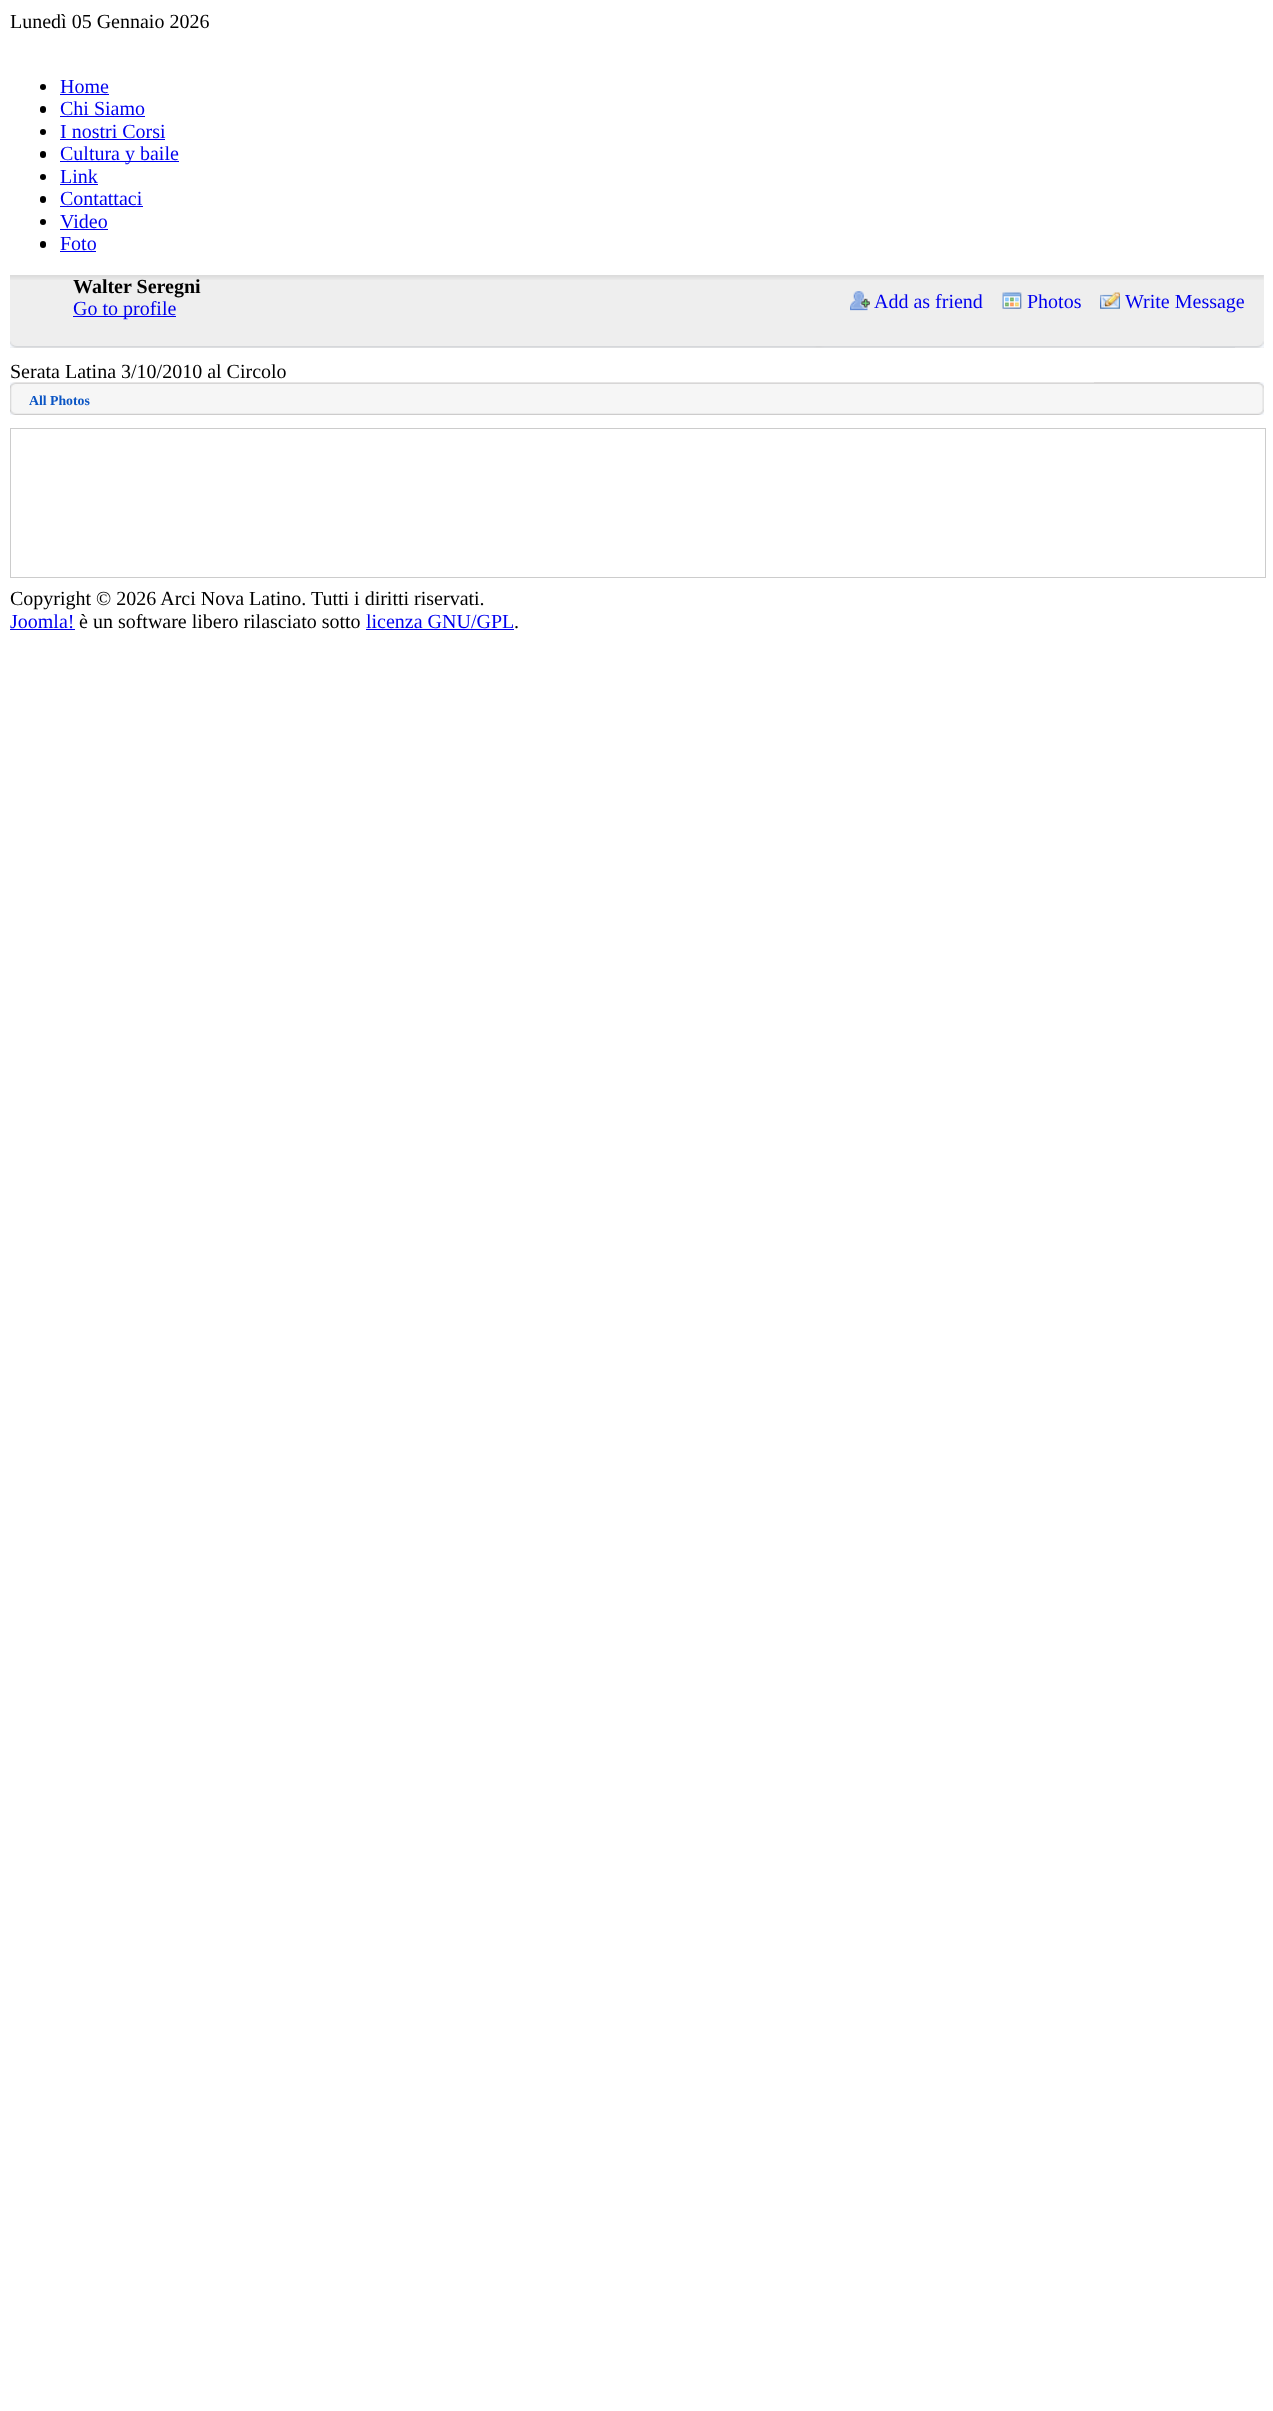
<svg xmlns="http://www.w3.org/2000/svg" xmlns:xlink="http://www.w3.org/1999/xlink" width="1273" height="2411" viewBox="0 0 1273 2411">
<style>
.cls-1{font:20px Liberation Serif;fill:#000000}
.cls-2{font:20px Liberation Serif;fill:#0000ee}
.cls-3{font:bold 20px Liberation Serif;fill:#000000}
.cls-4{font:bold 13.75px Liberation Serif;fill:#0b55c4}
</style>
<rect width="100%" height="100%" fill="#ffffff"/>
<circle fill="#000000" cx="43" cy="87" r="3"/>
<rect fill="#0000ee" x="60" y="94" width="49" height="1"/>
<rect fill="#000000" x="40" y="106" width="6" height="7" rx="3"/>
<rect fill="#0000ee" x="60" y="116" width="85" height="1"/>
<circle fill="#000000" cx="43" cy="132" r="3"/>
<rect fill="#0000ee" x="60" y="139" width="105" height="1"/>
<rect fill="#000000" x="40" y="151" width="6" height="7" rx="3"/>
<rect fill="#0000ee" x="60" y="161" width="119" height="1"/>
<circle fill="#000000" cx="43" cy="177" r="3"/>
<rect fill="#0000ee" x="60" y="184" width="38" height="1"/>
<rect fill="#000000" x="40" y="196" width="6" height="7" rx="3"/>
<rect fill="#0000ee" x="60" y="206" width="83" height="1"/>
<circle fill="#000000" cx="43" cy="222" r="3"/>
<rect fill="#0000ee" x="60" y="229" width="48" height="1"/>
<rect fill="#000000" x="40" y="241" width="6" height="7" rx="3"/>
<rect fill="#0000ee" x="60" y="251" width="36" height="1"/>
<rect fill="#eeeeee" x="10" y="275" width="1254" height="73"/>
<image xlink:href="image0.png" x="10" y="341" width="1225" height="7"/>
<image xlink:href="image1.png" x="1200" y="341" width="64" height="7"/>
<image xlink:href="image2.png" x="10" y="275" width="1254" height="5"/>
<rect fill="#0000ee" x="73" y="316" width="103" height="1"/>
<image xlink:href="image3.png" x="850" y="291" width="20" height="20"/>
<image xlink:href="image4.png" x="1002" y="292" width="20" height="17"/>
<image xlink:href="image5.png" x="1100" y="292" width="20" height="17"/>
<image xlink:href="image6.png" x="10" y="382" width="1250" height="33"/>
<image xlink:href="image7.png" x="1094" y="382" width="170" height="33"/>
<rect fill="none" stroke="#cccccc" x="10.5" y="428.5" width="1255" height="149"/>
<rect fill="#0000ee" x="10" y="629" width="65" height="1"/>
<rect fill="#0000ee" x="366" y="629" width="148" height="1"/>
<text class="cls-1" x="10" y="28">Lunedì 05 Gennaio 2026</text>
<text class="cls-2"><tspan x="60" y="93">Home</tspan><tspan x="60" y="115">Chi Siamo</tspan><tspan x="60" y="138">I nostri Corsi</tspan><tspan x="60" y="160">Cultura y baile</tspan><tspan x="60" y="183">Link</tspan><tspan x="60" y="205">Contattaci</tspan><tspan x="60" y="228">Video</tspan><tspan x="60" y="250">Foto</tspan></text>
<text class="cls-3" x="73" y="293">Walter Seregni</text>
<text class="cls-2" x="73" y="315">Go to profile</text>
<text class="cls-2" x="874" y="308">Add as friend</text>
<text class="cls-2" x="1027" y="308">Photos</text>
<text class="cls-2" x="1125" y="308">Write Message</text>
<text class="cls-1" x="10" y="378">Serata Latina 3/10/2010 al Circolo</text>
<text class="cls-4" x="29" y="405">All Photos</text>
<text class="cls-1" x="10" y="605">Copyright © 2026 Arci Nova Latino. Tutti i diritti riservati.</text>
<text class="cls-2" x="10" y="628">Joomla!</text>
<text class="cls-1" x="79" y="628">è un software libero rilasciato sotto</text>
<text class="cls-2" x="366" y="628">licenza GNU/GPL</text>
<text class="cls-1" x="514" y="628">.</text>
</svg>
